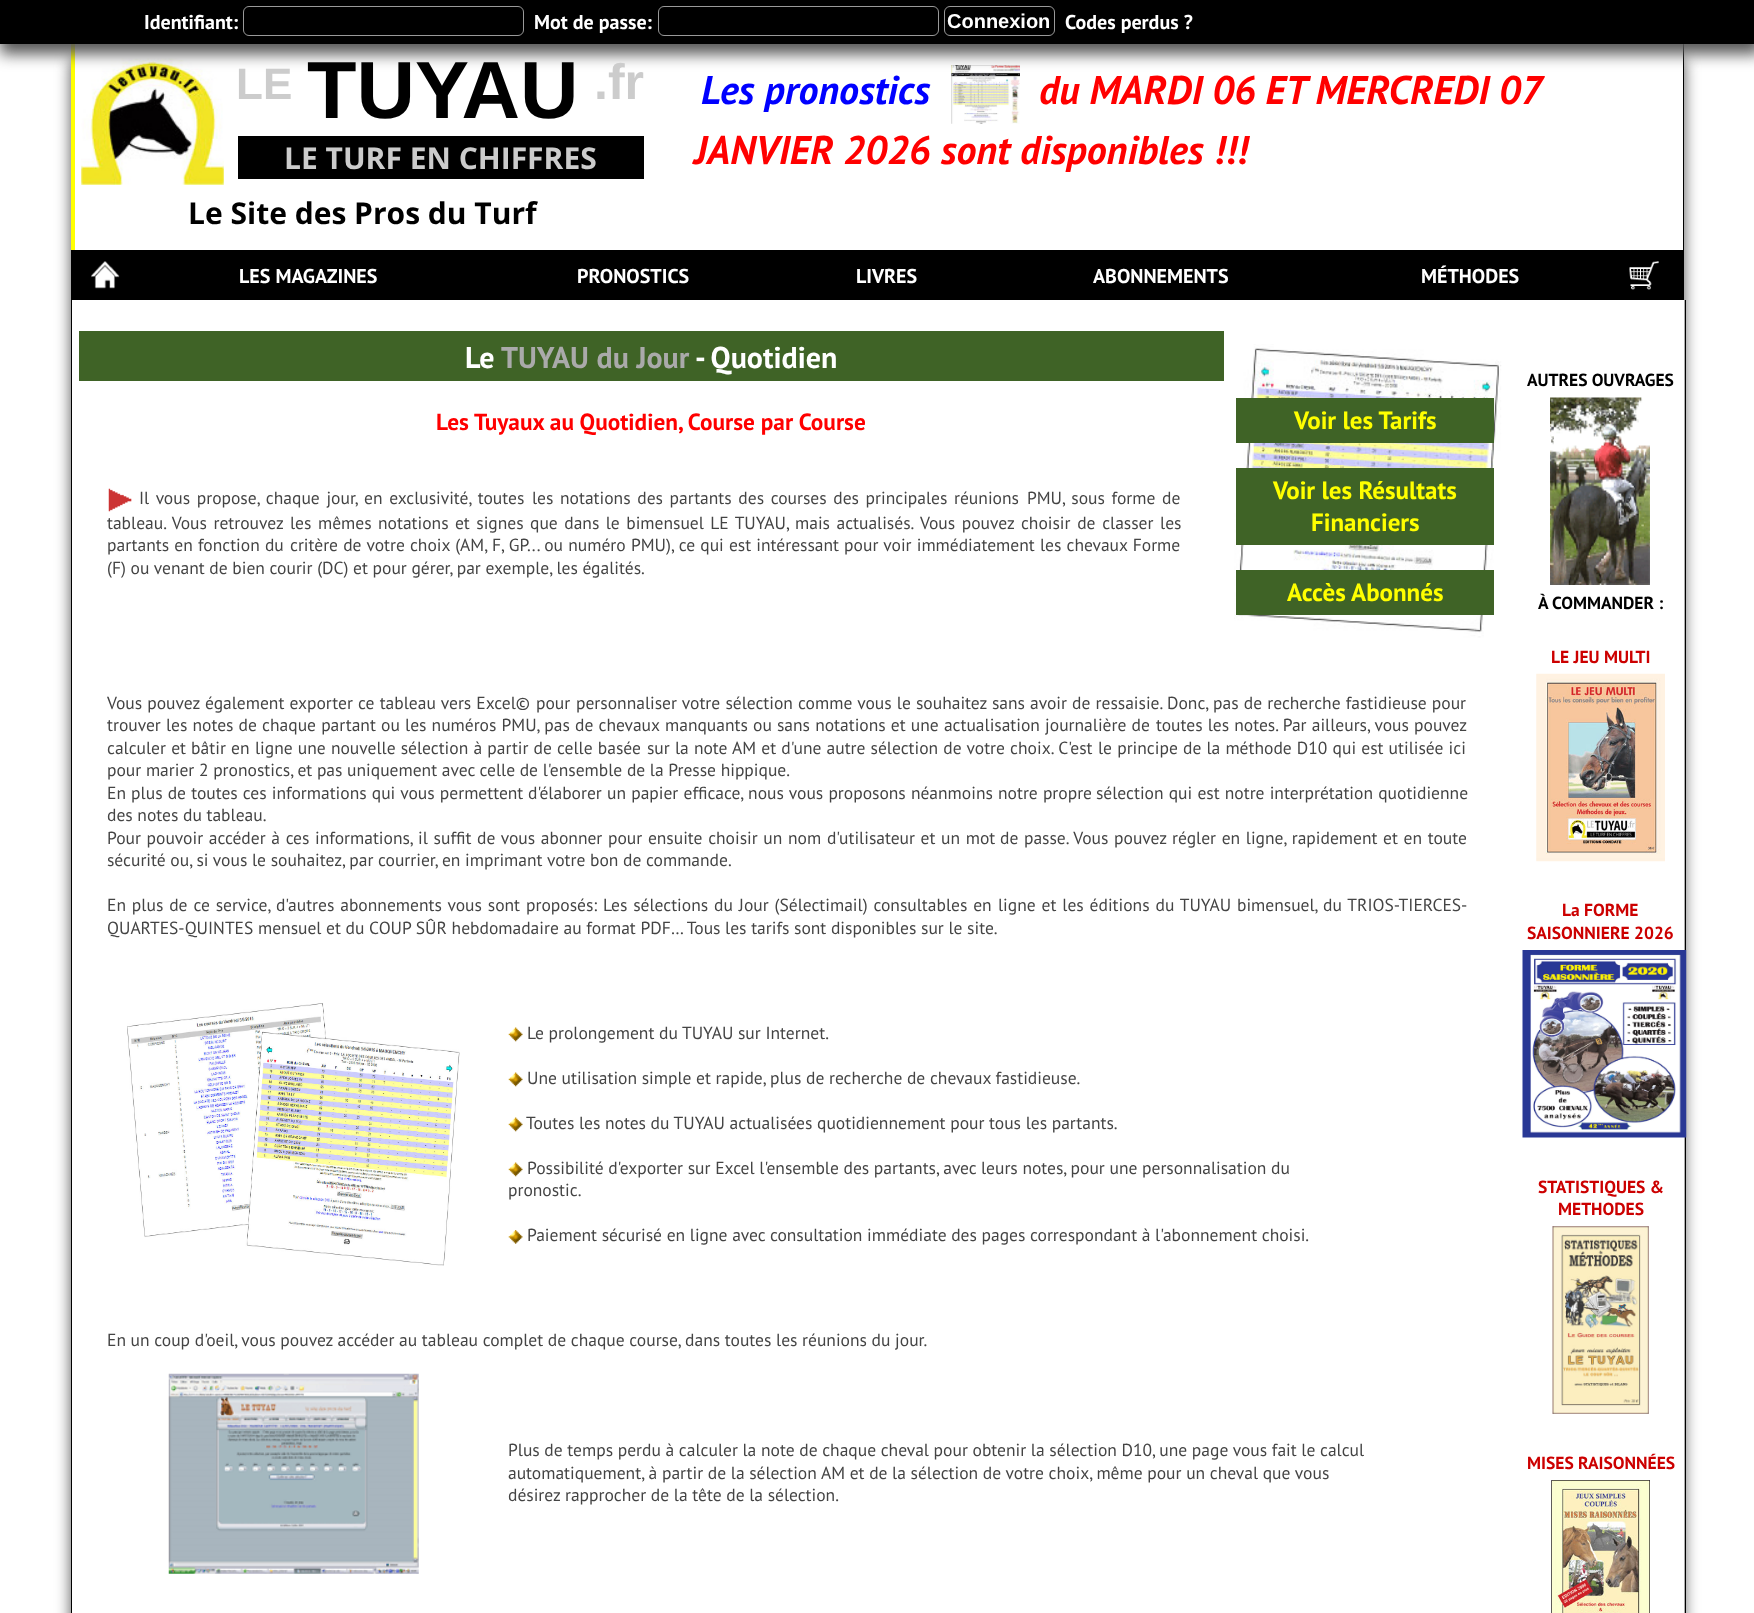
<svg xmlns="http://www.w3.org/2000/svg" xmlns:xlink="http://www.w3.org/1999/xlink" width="1754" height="1613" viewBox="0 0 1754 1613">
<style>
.cls-1{font:bold 20px PT Sans;fill:#ffffff}
.cls-2{font:bold 20px Liberation Sans;fill:#ffffff}
.cls-3{font:bold 44px Liberation Sans;fill:#cccccc}
.cls-4{font:bold 81px Liberation Sans;fill:#000000}
.cls-5{font:bold 50px Liberation Sans;fill:#cccccc}
.cls-6{font:bold 30px Open Sans;fill:#cccccc}
.cls-7{font:bold 30px Open Sans;fill:#000000}
.cls-8{font:italic bold 40px PT Sans;fill:#0000ff}
.cls-9{font:italic bold 40px PT Sans;fill:#ff0000}
.cls-10{font:bold 30px PT Sans;fill:#ffffff}
.cls-11{font:bold 30px PT Sans;fill:#aaaaaa}
.cls-12{font:bold 23.3px PT Sans;fill:#ff0000}
.cls-13{font:bold 25px PT Sans;fill:#ffff00}
.cls-14{font:17.5px PT Sans;fill:#444444}
.cls-15{font:bold 17.5px PT Sans;fill:#000000}
.cls-16{font:bold 17.5px PT Sans;fill:#cc0000}
</style>
<defs>
<clipPath id="clip1"><path d="M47 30H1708V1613H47ZM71 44H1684V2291C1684 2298 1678 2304 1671 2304H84C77 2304 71 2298 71 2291Z" clip-rule="evenodd"/></clipPath>
</defs>
<rect width="100%" height="100%" fill="#ffffff"/>
<g clip-path="url(#clip1)">
<rect fill="#555555" filter="blur(7.5px)" x="71" y="54" width="1613" height="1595" rx="13"/>
</g>
<rect fill="#000000" x="1683" y="44" width="1" height="206"/>
<rect fill="#ffff00" x="71" y="44" width="4" height="206"/>
<image xlink:href="image0.png" x="81" y="58" width="143" height="127"/>
<image xlink:href="image1.png" x="951" y="65" width="69" height="59"/>
<rect fill="#555555" filter="blur(7.5px)" x="0" y="10" width="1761" height="44"/>
<rect fill="#000000" x="0" y="0" width="1754" height="44"/>
<rect fill="none" stroke="#999999" x="243.5" y="6.5" width="280" height="29" rx="5.5"/>
<rect fill="none" stroke="#999999" x="658.5" y="6.5" width="280" height="29" rx="5.5"/>
<rect fill="none" stroke="#999999" x="944.5" y="6.5" width="110" height="29" rx="5.5"/>
<rect fill="#000000" x="238" y="136" width="406" height="43"/>
<rect fill="#000000" x="71" y="250" width="1613" height="50"/>
<image xlink:href="image2.png" x="91" y="261" width="29" height="28"/>
<image xlink:href="image3.png" x="1629" y="261" width="30" height="29"/>
<rect fill="#000000" x="1685" y="300" width="1" height="1313"/>
<rect fill="#000000" x="71" y="300" width="1" height="1313"/>
<rect fill="#3f6326" x="79" y="331" width="1145" height="50"/>
<image xlink:href="image4.png" x="1234" y="344" width="268" height="294"/>
<rect fill="#3f6326" x="1236" y="398" width="258" height="45"/>
<rect fill="#3f6326" x="1236" y="468" width="258" height="77"/>
<rect fill="#3f6326" x="1236" y="570" width="258" height="45"/>
<image xlink:href="image5.png" x="108" y="488" width="24" height="24"/>
<image xlink:href="image6.png" x="127" y="1003" width="333" height="263"/>
<image xlink:href="image7.png" x="508" y="1027" width="15" height="15"/>
<image xlink:href="image7.png" x="508" y="1072" width="15" height="15"/>
<image xlink:href="image7.png" x="508" y="1117" width="15" height="15"/>
<image xlink:href="image7.png" x="508" y="1162" width="15" height="15"/>
<image xlink:href="image8.png" x="508" y="1230" width="15" height="14"/>
<image xlink:href="image9.png" x="168" y="1373" width="251" height="201"/>
<image xlink:href="image10.png" x="1550" y="397" width="100" height="188"/>
<image xlink:href="image11.png" x="1536" y="673" width="129" height="189"/>
<image xlink:href="image12.png" x="1522" y="950" width="165" height="188"/>
<image xlink:href="image13.png" x="1552" y="1226" width="97" height="188"/>
<image xlink:href="image14.png" x="1551" y="1480" width="99" height="133"/>
<text class="cls-1" x="144" y="29">Identifiant:</text>
<text class="cls-1" x="534" y="29">Mot de passe:</text>
<text class="cls-2" x="947" y="28">Connexion</text>
<text class="cls-1" x="1065" y="29">Codes perdus ?</text>
<text class="cls-3" x="236" y="99">LE</text>
<text class="cls-4" x="307" y="118">TUYAU</text>
<text class="cls-5" x="594" y="99">.fr</text>
<text class="cls-6" x="284" y="169">LE TURF EN CHIFFRES</text>
<text class="cls-7" x="188" y="224">Le Site des Pros du Turf</text>
<text class="cls-8" x="701" y="104">Les pronostics</text>
<text class="cls-9" x="1039" y="104" word-spacing="-0.5">du MARDI 06 ET MERCREDI 07</text>
<text class="cls-9" x="694" y="164">JANVIER 2026 sont disponibles !!!</text>
<text class="cls-1" x="239" y="283">LES MAGAZINES</text>
<text class="cls-1" x="577" y="283">PRONOSTICS</text>
<text class="cls-1" x="856" y="283">LIVRES</text>
<text class="cls-1" x="1093" y="283">ABONNEMENTS</text>
<text class="cls-1" x="1421" y="283">MÉTHODES</text>
<text class="cls-10" x="465" y="368">Le</text>
<text class="cls-11" x="501" y="368">TUYAU du Jour</text>
<text class="cls-10" x="695" y="368">- Quotidien</text>
<text class="cls-12" x="436" y="430">Les Tuyaux au Quotidien, Course par Course</text>
<text class="cls-13" x="1294" y="429">Voir les Tarifs</text>
<text class="cls-13" x="1273" y="499">Voir les Résultats</text>
<text class="cls-13" x="1311" y="531">Financiers</text>
<text class="cls-13" x="1287" y="601">Accès Abonnés</text>
<text class="cls-14" x="139" y="504" word-spacing="2">Il vous propose, chaque jour, en exclusivité, toutes</text>
<text class="cls-14" x="532" y="504" word-spacing="2">les notations des partants des courses des principales réunions</text>
<text class="cls-14" x="1027" y="504" word-spacing="2">PMU, sous forme de</text>
<text class="cls-14" x="107" y="529" word-spacing="2">tableau. Vous retrouvez les mêmes</text>
<text class="cls-14" x="378" y="529" word-spacing="1.8">notations et signes que dans le bimensuel LE TUYAU, mais actualisés.</text>
<text class="cls-14" x="920" y="529" word-spacing="2">Vous pouvez choisir de classer les</text>
<text class="cls-14" x="107" y="551" word-spacing="0.5">partants en fonction du</text>
<text class="cls-14" x="290" y="551" word-spacing="0.5">critère de votre choix (AM, F, GP... ou numéro</text>
<text class="cls-14" x="631" y="551" word-spacing="0.5">PMU), ce qui est intéressant pour voir immédiatement</text>
<text class="cls-14" x="1040" y="551" word-spacing="0.5">les chevaux Forme</text>
<text class="cls-14" x="107" y="574">(F) ou venant de bien courir (DC) et pour gérer, par exemple, les égalités.</text>
<text class="cls-14" x="107" y="709" word-spacing="0.5">Vous pouvez également exporter ce tableau vers Excel©</text>
<text class="cls-14" x="536" y="709">pour</text>
<text class="cls-14" x="576" y="709" word-spacing="0.5">personnaliser votre sélection comme vous le souhaitez sans</text>
<text class="cls-14" x="1030" y="709" word-spacing="0.5">avoir de ressaisie. Donc, pas de recherche fastidieuse pour</text>
<text class="cls-14" x="107" y="731" word-spacing="0.5">trouver les notes de chaque partant ou les numéros PMU, pas de chevaux</text>
<text class="cls-14" x="665" y="731" word-spacing="0.5">manquants ou sans notations et une actualisation journalière de</text>
<text class="cls-14" x="1156" y="731" word-spacing="0.5">toutes les notes. Par ailleurs, vous pouvez</text>
<text class="cls-14" x="107" y="754" word-spacing="0.5">calculer et bâtir en</text>
<text class="cls-14" x="255" y="754" word-spacing="0.5">ligne une nouvelle sélection à partir de celle basée</text>
<text class="cls-14" x="647" y="754" word-spacing="0.5">sur la note AM et d'une autre sélection de votre choix. C'est</text>
<text class="cls-14" x="1098" y="754" word-spacing="0.5">le principe de la méthode D10 qui est utilisée ici</text>
<text class="cls-14"><tspan x="107" y="776">pour marier 2 pronostics, et pas uniquement avec celle de l'ensemble de la Presse hippique.</tspan><tspan x="107" y="799" word-spacing="0.5">En plus de toutes ces informations qui vous permettent</tspan></text>
<text class="cls-14" x="528" y="799">d'élaborer</text>
<text class="cls-14" x="607" y="799" word-spacing="0.5">un papier efficace, nous vous proposons néanmoins notre propre</text>
<text class="cls-14" x="1096" y="799" word-spacing="0.5">sélection qui est notre interprétation quotidienne</text>
<text class="cls-14"><tspan x="107" y="821">des notes du tableau.</tspan><tspan x="107" y="844" word-spacing="1">Pour pouvoir accéder à ces informations, il suffit</tspan></text>
<text class="cls-14" x="477" y="844" word-spacing="1">de vous abonner pour ensuite choisir un nom d'utilisateur et un mot</text>
<text class="cls-14" x="1000" y="844" word-spacing="1">de passe. Vous pouvez</text>
<text class="cls-14" x="1172" y="844" word-spacing="1">régler en ligne, rapidement et en toute</text>
<text class="cls-14" x="107" y="866">sécurité ou, si vous le souhaitez, par courrier, en imprimant votre bon de commande.</text>
<text class="cls-14" x="107" y="911" word-spacing="1.25">En plus de ce service, d'autres abonnements vous sont</text>
<text class="cls-14" x="526" y="911">proposés:</text>
<text class="cls-14" x="603" y="911" word-spacing="1.25">Les sélections du Jour (Sélectimail) consultables en</text>
<text class="cls-14" x="998" y="911" word-spacing="1.25">ligne et les éditions du TUYAU bimensuel, du TRIOS-TIERCES-</text>
<text class="cls-14" x="107" y="934">QUARTES-QUINTES mensuel et du COUP SÛR hebdomadaire au format PDF… Tous les tarifs sont disponibles sur le site.</text>
<text class="cls-14" x="527" y="1039">Le prolongement du TUYAU sur Internet.</text>
<text class="cls-14" x="527" y="1084">Une utilisation simple et rapide, plus de recherche de chevaux fastidieuse.</text>
<text class="cls-14" x="526" y="1129">Toutes les notes du TUYAU actualisées quotidiennement pour tous les partants.</text>
<text class="cls-14" x="527" y="1174">Possibilité d'exporter sur Excel l'ensemble des partants, avec leurs notes, pour une personnalisation du</text>
<text class="cls-14" x="508" y="1196">pronostic.</text>
<text class="cls-14" x="527" y="1241">Paiement sécurisé en ligne avec consultation immédiate des pages correspondant à l'abonnement choisi.</text>
<text class="cls-14" x="107" y="1346">En un coup d'oeil, vous pouvez accéder au tableau complet de chaque course, dans toutes les réunions du jour.</text>
<text class="cls-14"><tspan x="508" y="1456">Plus de temps perdu à calculer la note de chaque cheval pour obtenir la sélection D10, une page vous fait le calcul</tspan><tspan x="508" y="1479">automatiquement, à partir de la sélection AM et de la sélection de votre choix, même pour un cheval que vous</tspan><tspan x="508" y="1501">désirez rapprocher de la tête de la sélection.</tspan></text>
<text class="cls-15" x="1527" y="386">AUTRES OUVRAGES</text>
<text class="cls-15" x="1538" y="609">À COMMANDER :</text>
<text class="cls-16" x="1551" y="663">LE JEU MULTI</text>
<text class="cls-16" x="1562" y="916">La FORME</text>
<text class="cls-16" x="1527" y="939">SAISONNIERE 2026</text>
<text class="cls-16" x="1538" y="1193">STATISTIQUES &amp;</text>
<text class="cls-16" x="1558" y="1215">METHODES</text>
<text class="cls-16" x="1527" y="1469">MISES RAISONNÉES</text>
</svg>
